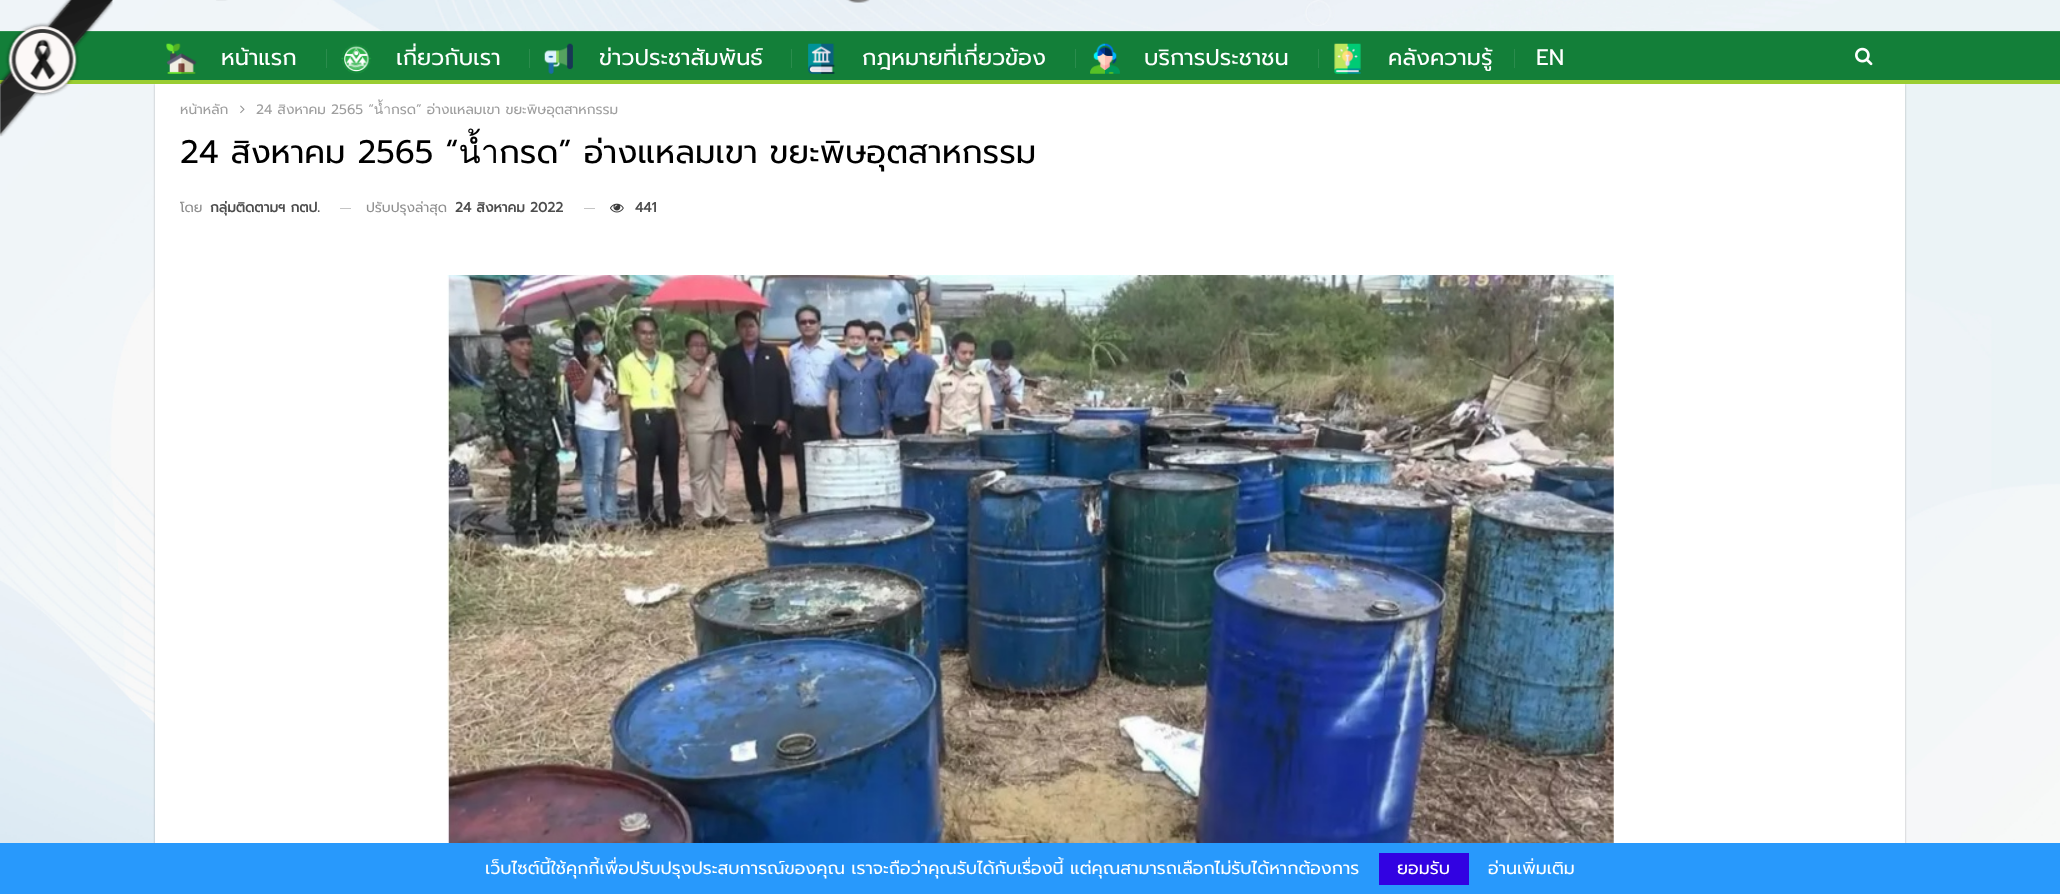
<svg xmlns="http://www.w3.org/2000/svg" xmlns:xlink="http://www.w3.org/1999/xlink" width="2060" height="894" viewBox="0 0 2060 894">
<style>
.cls-1{font:22.5px Prompt;fill:#ffffff}
.cls-2{font:13.75px Prompt;fill:#9e9e9e}
.cls-3{font:32.5px Prompt;fill:#000000}
.cls-4{font:13.75px Prompt;fill:#8f8f8f}
.cls-5{font:bold 13.75px Prompt;fill:#4d4d4d}
.cls-6{font:17.5px Prompt;fill:#ffffff}
</style>
<rect width="100%" height="100%" fill="#ffffff"/>
<image xlink:href="image0.png" x="0" y="0" width="2060" height="843"/>
<rect fill="#137f39" x="0" y="32" width="2060" height="48"/>
<rect fill="#2b8c4d" x="0" y="31" width="2060" height="1"/>
<rect fill="#000000" fill-opacity="0.27" filter="blur(1px)" x="155" y="84" width="1750" height="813"/>
<rect fill="#9acd32" x="0" y="80" width="2060" height="4"/>
<image xlink:href="image1.png" x="0" y="0" width="113" height="137"/>
<image xlink:href="image2.png" x="216" y="0" width="654" height="3"/>
<image xlink:href="image3.png" x="166" y="43" width="31" height="31"/>
<rect fill="#2b8c4d" x="326" y="49" width="1" height="19"/>
<image xlink:href="image4.png" x="341" y="44" width="31" height="30"/>
<rect fill="#2b8c4d" x="529" y="49" width="1" height="19"/>
<image xlink:href="image5.png" x="544" y="43" width="29" height="31"/>
<rect fill="#2b8c4d" x="791" y="49" width="1" height="19"/>
<image xlink:href="image6.png" x="808" y="43" width="27" height="31"/>
<rect fill="#2b8c4d" x="1075" y="49" width="1" height="19"/>
<image xlink:href="image7.png" x="1090" y="43" width="30" height="31"/>
<rect fill="#2b8c4d" x="1318" y="49" width="1" height="19"/>
<image xlink:href="image8.png" x="1334" y="43" width="27" height="31"/>
<rect fill="#2b8c4d" x="1514" y="49" width="1" height="19"/>
<image xlink:href="image9.png" x="1855" y="47" width="18" height="19"/>
<rect fill="#ffffff" x="155" y="84" width="1750" height="759"/>
<image xlink:href="image10.png" x="240" y="105" width="5" height="9"/>
<rect fill="#c4c4c4" x="340" y="208" width="11" height="1"/>
<rect fill="#c4c4c4" x="584" y="208" width="11" height="1"/>
<image xlink:href="image11.png" x="610" y="203" width="14" height="10"/>
<image xlink:href="image12.png" x="447" y="275" width="1167" height="568"/>
<rect fill="#2899fc" x="0" y="843" width="2060" height="51"/>
<rect fill="#3202e2" x="1379" y="853" width="90" height="32"/>
<text class="cls-1" x="221" y="65">หน้าแรก</text>
<text class="cls-1" x="396" y="65">เกี่ยวกับเรา</text>
<text class="cls-1" x="599" y="65">ข่าวประชาสัมพันธ์</text>
<text class="cls-1" x="862" y="65">กฎหมายที่เกี่ยวข้อง</text>
<text class="cls-1" x="1144" y="65">บริการประชาชน</text>
<text class="cls-1" x="1388" y="65">คลังความรู้</text>
<text class="cls-1" x="1536" y="65">EN</text>
<text class="cls-2" x="180" y="114">หน้าหลัก</text>
<text class="cls-2" x="256" y="114">24 สิงหาคม 2565 “น้ำกรด” อ่างแหลมเขา ขยะพิษอุตสาหกรรม</text>
<text class="cls-3" x="180" y="163">24 สิงหาคม 2565 “น้ำกรด” อ่างแหลมเขา ขยะพิษอุตสาหกรรม</text>
<text class="cls-4" x="180" y="212">โดย</text>
<text class="cls-5" x="210" y="212">กลุ่มติดตามฯ กตป.</text>
<text class="cls-4" x="366" y="212">ปรับปรุงล่าสุด</text>
<text class="cls-5" x="455" y="212">24 สิงหาคม 2022</text>
<text class="cls-5" x="635" y="212">441</text>
<text class="cls-6" x="485" y="874">เว็บไซต์นี้ใช้คุกกี้เพื่อปรับปรุงประสบการณ์ของคุณ เราจะถือว่าคุณรับได้กับเรื่องนี้ แต่คุณสามารถเลือกไม่รับได้หากต้องการ</text>
<text class="cls-6" x="1397" y="874">ยอมรับ</text>
<text class="cls-6" x="1488" y="874">อ่านเพิ่มเติม</text>
</svg>
